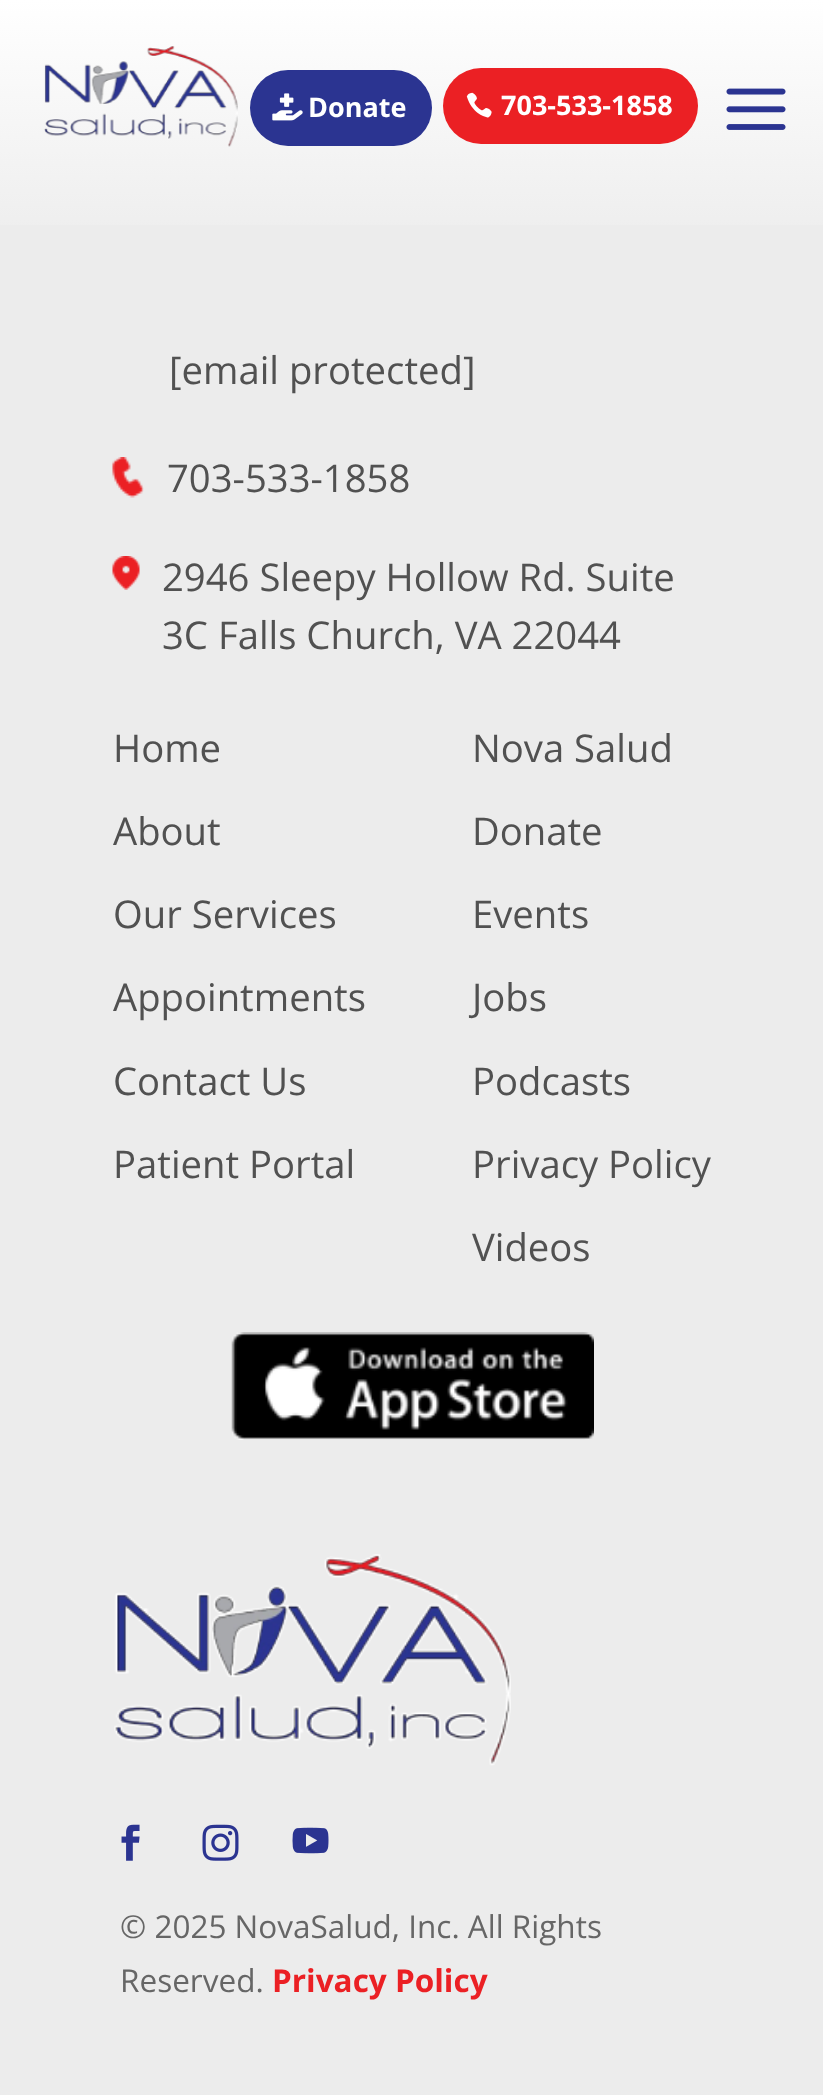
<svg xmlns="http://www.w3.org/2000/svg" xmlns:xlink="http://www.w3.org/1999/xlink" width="823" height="2095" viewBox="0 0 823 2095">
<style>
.cls-1{font:bold 27px Open Sans;fill:#ffffff}
.cls-2{font:38.25px Open Sans;fill:#515151}
.cls-3{font:31.5px Open Sans;fill:#666666}
.cls-4{font:bold 31.5px Open Sans;fill:#eb2024}
</style>
<defs>
<linearGradient id="g1" gradientUnits="userSpaceOnUse" x1="412" y1="259" x2="412" y2="0"><stop offset="0" stop-color="#ececec"/><stop offset="1" stop-color="#ffffff"/></linearGradient>
</defs>
<rect width="100%" height="100%" fill="#ececec"/>
<rect fill="url(#g1)" x="0" y="0" width="823" height="225"/>
<image xlink:href="image0.png" x="44" y="46" width="194" height="101"/>
<rect fill="#2b3491" x="250" y="70" width="182" height="76" rx="38"/>
<image xlink:href="image1.png" x="272" y="93" width="31" height="28"/>
<rect fill="#eb2024" x="443" y="68" width="255" height="76" rx="38"/>
<image xlink:href="image2.png" x="466" y="92" width="26" height="26"/>
<image xlink:href="image3.png" x="726" y="88" width="60" height="42"/>
<image xlink:href="image4.png" x="112" y="457" width="32" height="41"/>
<image xlink:href="image5.png" x="112" y="556" width="28" height="34"/>
<image xlink:href="image6.png" x="231" y="1332" width="363" height="108"/>
<image xlink:href="image7.png" x="114" y="1554" width="397" height="212"/>
<image xlink:href="image8.png" x="121" y="1824" width="19" height="37"/>
<image xlink:href="image9.png" x="202" y="1824" width="37" height="37"/>
<image xlink:href="image10.png" x="292" y="1827" width="37" height="27"/>
<text class="cls-1" x="308" y="117">Donate</text>
<text class="cls-1" x="501" y="115">703-533-1858</text>
<text class="cls-2" x="169" y="384">[email protected]</text>
<text class="cls-2" x="167" y="492">703-533-1858</text>
<text class="cls-2"><tspan x="162" y="591">2946 Sleepy Hollow Rd. Suite</tspan><tspan x="162" y="649">3C Falls Church, VA 22044</tspan></text>
<text class="cls-2" x="113" y="762">Home</text>
<text class="cls-2" x="113" y="845">About</text>
<text class="cls-2" x="113" y="928">Our Services</text>
<text class="cls-2" x="113" y="1011">Appointments</text>
<text class="cls-2" x="113" y="1095">Contact Us</text>
<text class="cls-2" x="113" y="1178">Patient Portal</text>
<text class="cls-2" x="472" y="762">Nova Salud</text>
<text class="cls-2" x="472" y="845">Donate</text>
<text class="cls-2" x="472" y="928">Events</text>
<text class="cls-2" x="472" y="1011">Jobs</text>
<text class="cls-2" x="472" y="1095">Podcasts</text>
<text class="cls-2" x="472" y="1178">Privacy Policy</text>
<text class="cls-2" x="472" y="1261">Videos</text>
<text class="cls-3"><tspan x="120" y="1938">© 2025 NovaSalud, Inc. All Rights</tspan><tspan x="120" y="1992">Reserved.</tspan></text>
<text class="cls-4" x="272" y="1992">Privacy Policy</text>
</svg>
